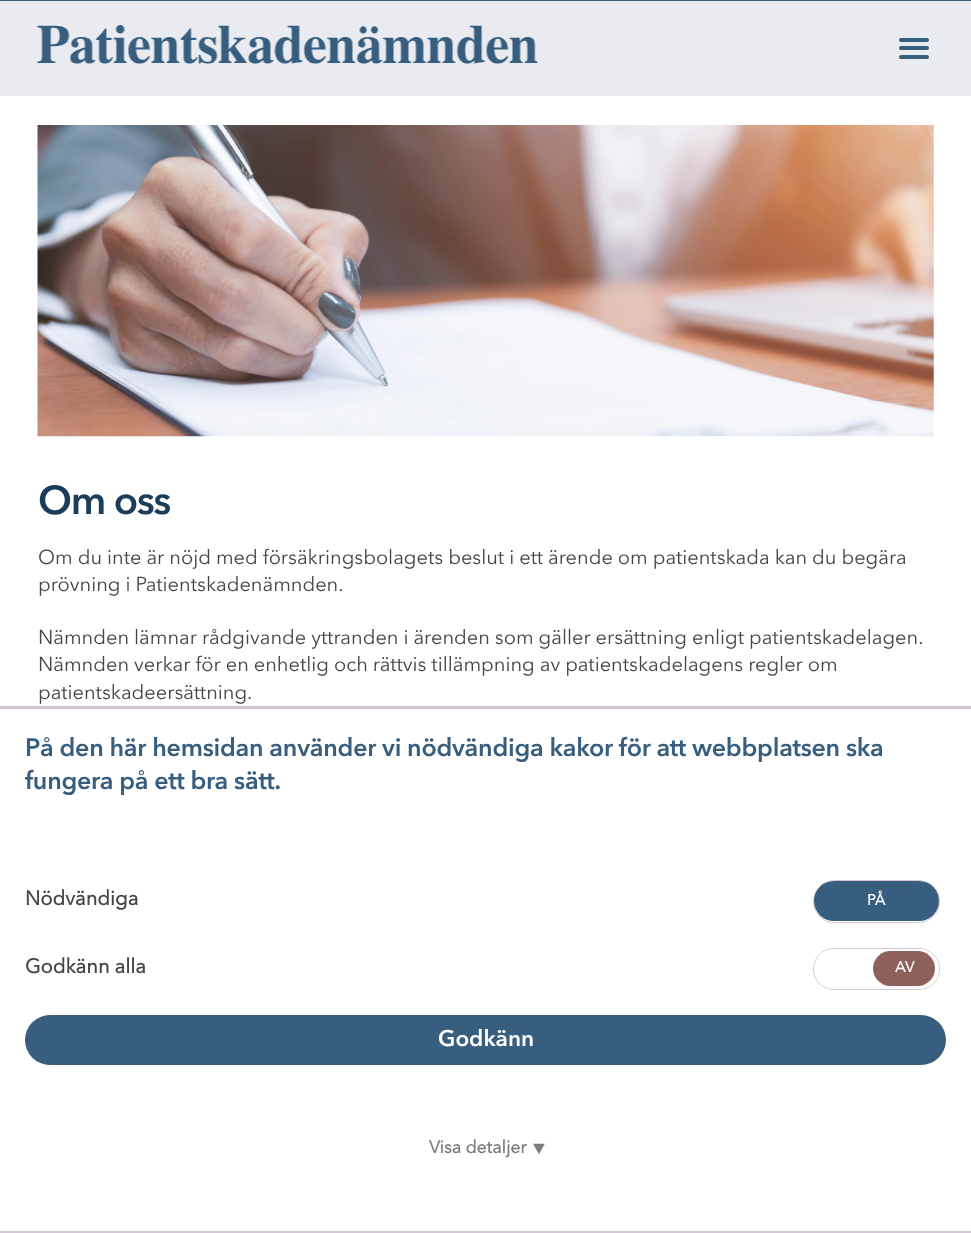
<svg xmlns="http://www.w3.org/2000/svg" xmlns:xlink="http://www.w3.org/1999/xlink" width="971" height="1233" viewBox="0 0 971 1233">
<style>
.cls-1{font:bold 40px Avenir Next;letter-spacing:-1.25px;fill:#1b3d5a}
.cls-2{font:20px Avenir Next;fill:#454545}
.cls-3{font:bold 25px Avenir Next;letter-spacing:-0.25px;fill:#375e7f}
.cls-4{font:bold 20px 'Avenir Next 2';fill:#454545}
.cls-5{font:bold 15px 'Avenir Next 2';fill:#ffffff}
.cls-6{font:bold 22.5px Avenir Next;fill:#ffffff}
.cls-7{font:bold 17.5px 'Avenir Next 2';fill:#7d7d7d}
.cls-8{font:40px Noto Sans;fill:#7d7d7d}
</style>
<rect width="100%" height="100%" fill="#ffffff"/>
<rect fill="#375e7f" x="0" y="0" width="971" height="1"/>
<rect fill="#e9ebf0" x="0" y="1" width="971" height="95"/>
<image xlink:href="image0.png" x="37" y="25" width="501" height="39"/>
<rect fill="#375e7f" x="899" y="38" width="30" height="4" rx="2"/>
<rect fill="#375e7f" x="899" y="46" width="30" height="4" rx="2"/>
<rect fill="#375e7f" x="899" y="55" width="30" height="4" rx="2"/>
<image xlink:href="image1.png" x="37" y="125" width="897" height="312"/>
<rect fill="#d2c6d2" x="0" y="706" width="971" height="3"/>
<rect fill="#d2c6d2" x="0" y="1231" width="971" height="2"/>
<rect fill="none" stroke="#d2c6d2" x="813.5" y="880.5" width="126" height="42" rx="21"/>
<rect fill="#375e7f" x="814" y="881" width="125" height="40" rx="20"/>
<rect fill="none" stroke="#d2c6d2" x="813.5" y="948.5" width="126" height="41" rx="20.5"/>
<rect fill="#ffffff" x="814" y="949" width="125" height="40" rx="20"/>
<rect fill="#8e605b" x="873" y="951" width="62" height="35" rx="17.5"/>
<rect fill="#375e7f" x="25" y="1015" width="921" height="50" rx="25"/>
<text class="cls-1" x="38" y="514">Om oss</text>
<text class="cls-2"><tspan x="38" y="564">Om du inte är nöjd med försäkringsbolagets beslut i ett ärende om patientskada kan du begära</tspan><tspan x="38" y="591">prövning i Patientskadenämnden.</tspan></text>
<text class="cls-2"><tspan x="38" y="644">Nämnden lämnar rådgivande yttranden i ärenden som gäller ersättning enligt patientskadelagen.</tspan><tspan x="38" y="671">Nämnden verkar för en enhetlig och rättvis tillämpning av patientskadelagens regler om</tspan><tspan x="38" y="699">patientskadeersättning.</tspan></text>
<text class="cls-3"><tspan x="25" y="756">På den här hemsidan använder vi nödvändiga kakor för att webbplatsen ska</tspan><tspan x="25" y="789">fungera på ett bra sätt.</tspan></text>
<text class="cls-4" x="25" y="905">Nödvändiga</text>
<text class="cls-5" x="867" y="905">PÅ</text>
<text class="cls-4" x="25" y="973">Godkänn alla</text>
<text class="cls-5" x="895" y="972">AV</text>
<text class="cls-6" x="438" y="1046">Godkänn</text>
<text class="cls-7" x="429" y="1153">Visa detaljer</text>
<text class="cls-8" x="524" y="1141" transform="rotate(90 524 1141)">‣</text>
</svg>
